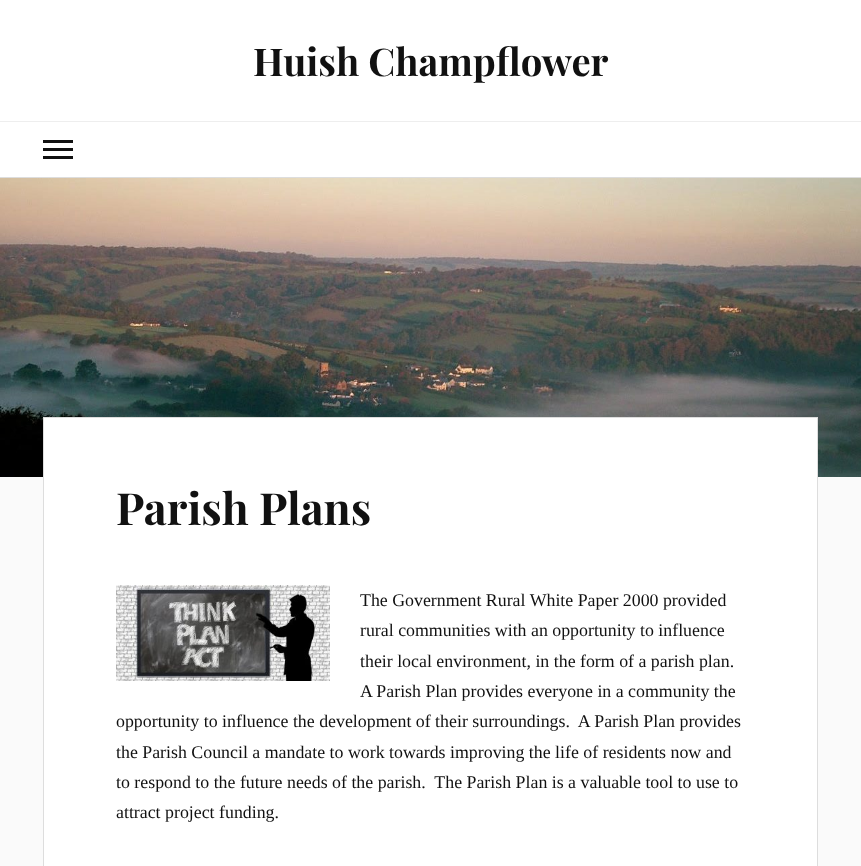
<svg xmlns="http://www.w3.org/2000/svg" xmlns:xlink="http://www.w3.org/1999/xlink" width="861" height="866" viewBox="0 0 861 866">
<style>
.cls-1{font:bold 38.25px Playfair Display;fill:#111111}
.cls-2{font:bold 44.25px Playfair Display;fill:#111111}
.cls-3{font:17.85px Liberation Serif;fill:#111111}
</style>
<rect width="100%" height="100%" fill="#fafafa"/>
<rect fill="#ffffff" x="0" y="0" width="861" height="121"/>
<rect fill="#ffffff" x="0" y="122" width="861" height="55"/>
<rect fill="#eeeeee" x="0" y="121" width="861" height="1"/>
<rect fill="#111111" x="43" y="140" width="30" height="3"/>
<rect fill="#111111" x="43" y="148" width="30" height="3"/>
<rect fill="#111111" x="43" y="156" width="30" height="3"/>
<rect fill="#dddddd" x="0" y="177" width="861" height="1"/>
<image xlink:href="image0.png" x="0" y="178" width="861" height="299"/>
<rect fill="#ffffff" stroke="#dddddd" x="43.5" y="417.5" width="774" height="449"/>
<image xlink:href="image1.png" x="116" y="585" width="214" height="96"/>
<text class="cls-1" x="253" y="76">Huish Champflower</text>
<text class="cls-2" x="116" y="525">Parish Plans</text>
<text class="cls-3"><tspan x="360" y="606">The Government Rural White Paper 2000 provided</tspan><tspan x="360" y="636">rural communities with an opportunity to influence</tspan><tspan x="360" y="667">their local environment, in the form of a parish plan.</tspan><tspan x="360" y="697">A Parish Plan provides everyone in a community the</tspan></text>
<text class="cls-3" xml:space="preserve"><tspan x="116" y="727">opportunity to influence the development of their surroundings.  A Parish Plan provides</tspan><tspan x="116" y="758">the Parish Council a mandate to work towards improving the life of residents now and</tspan><tspan x="116" y="788">to respond to the future needs of the parish.  The Parish Plan is a valuable tool to use to</tspan><tspan x="116" y="818">attract project funding.</tspan></text>
</svg>
